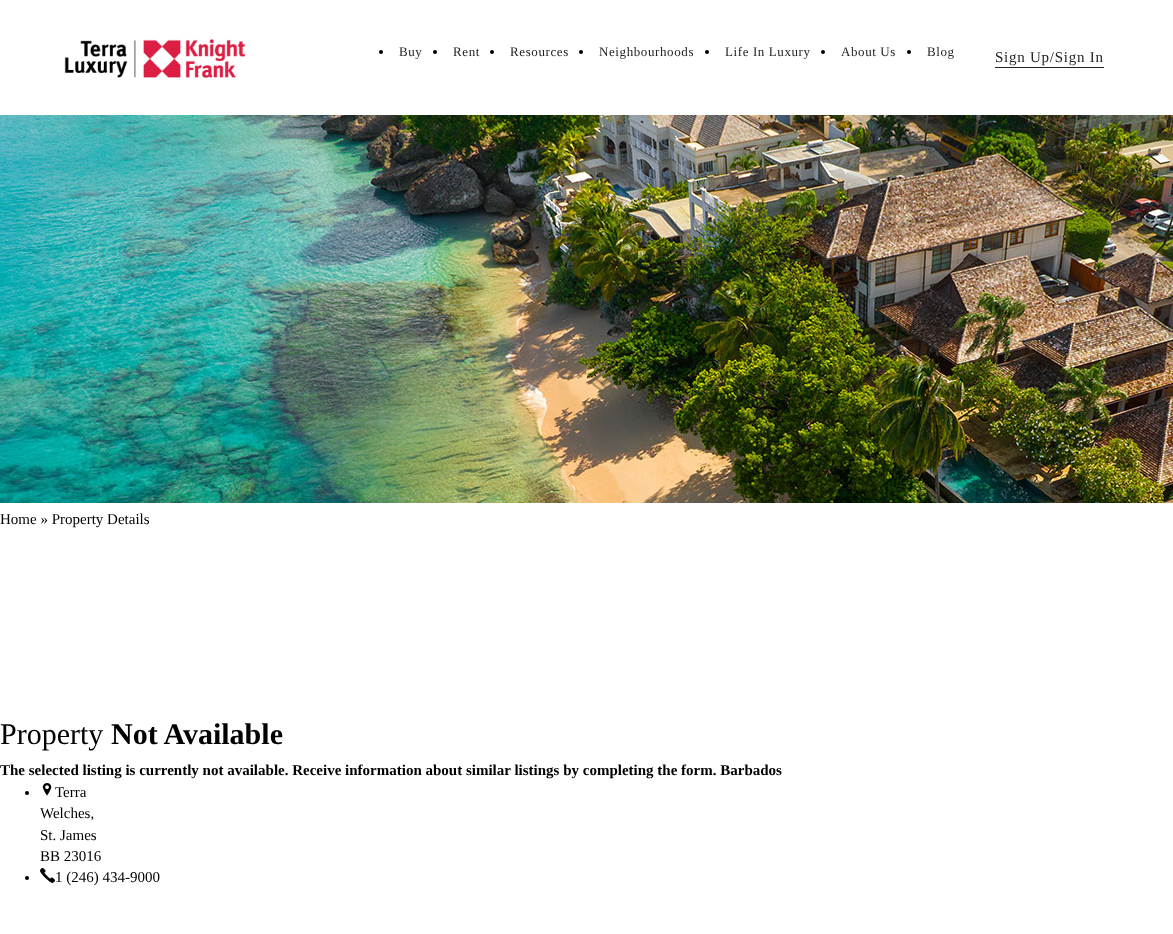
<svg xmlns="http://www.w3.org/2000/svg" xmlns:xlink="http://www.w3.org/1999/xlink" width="1173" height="934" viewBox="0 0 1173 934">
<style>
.cls-1{font:13px Liberation Serif;letter-spacing:0.6px;fill:#232323}
.cls-2{font:15px Liberation Serif;letter-spacing:0.75px;fill:#232323}
.cls-3{font:15px Liberation Serif;fill:#000000}
.cls-4{font:30px Liberation Serif;fill:#000000}
.cls-5{font:bold 30px Liberation Serif;fill:#000000}
.cls-6{font:bold 15px Liberation Serif;fill:#000000}
.cls-7{font:15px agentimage;fill:#000000}
</style>
<rect width="100%" height="100%" fill="#ffffff"/>
<image xlink:href="image0.png" x="64" y="39" width="181" height="39"/>
<circle fill="#000000" cx="381" cy="52" r="2"/>
<circle fill="#000000" cx="435" cy="52" r="2"/>
<circle fill="#000000" cx="492" cy="52" r="2"/>
<circle fill="#000000" cx="581" cy="52" r="2"/>
<circle fill="#000000" cx="707" cy="52" r="2"/>
<circle fill="#000000" cx="823" cy="52" r="2"/>
<circle fill="#000000" cx="909" cy="52" r="2"/>
<rect fill="#232323" x="995" y="67" width="109" height="1"/>
<image xlink:href="image1.png" x="0" y="115" width="1173" height="388"/>
<circle fill="#000000" cx="27" cy="793" r="2"/>
<circle fill="#000000" cx="27" cy="878" r="2"/>
<text class="cls-1" x="399" y="56">Buy</text>
<text class="cls-1" x="453" y="56">Rent</text>
<text class="cls-1" x="510" y="56">Resources</text>
<text class="cls-1" x="599" y="56">Neighbourhoods</text>
<text class="cls-1" x="725" y="56">Life In Luxury</text>
<text class="cls-1" x="841" y="56">About Us</text>
<text class="cls-1" x="927" y="56">Blog</text>
<text class="cls-2" x="995" y="62">Sign Up/Sign In</text>
<text class="cls-3" x="0" y="524">Home » Property Details</text>
<text class="cls-4" x="0" y="744">Property</text>
<text class="cls-5" x="111" y="744">Not Available</text>
<text class="cls-6" x="0" y="775">The selected listing is currently not available. Receive information about similar listings by completing the form. Barbados</text>
<text class="cls-7" x="40" y="797">򰁘</text>
<text class="cls-3" x="55" y="797">Terra</text>
<text class="cls-3"><tspan x="40" y="818">Welches,</tspan><tspan x="40" y="840">St. James</tspan><tspan x="40" y="861">BB 23016</tspan></text>
<text class="cls-7" x="40" y="882">򰁩</text>
<text class="cls-3" x="55" y="882">1 (246) 434-9000</text>
</svg>
